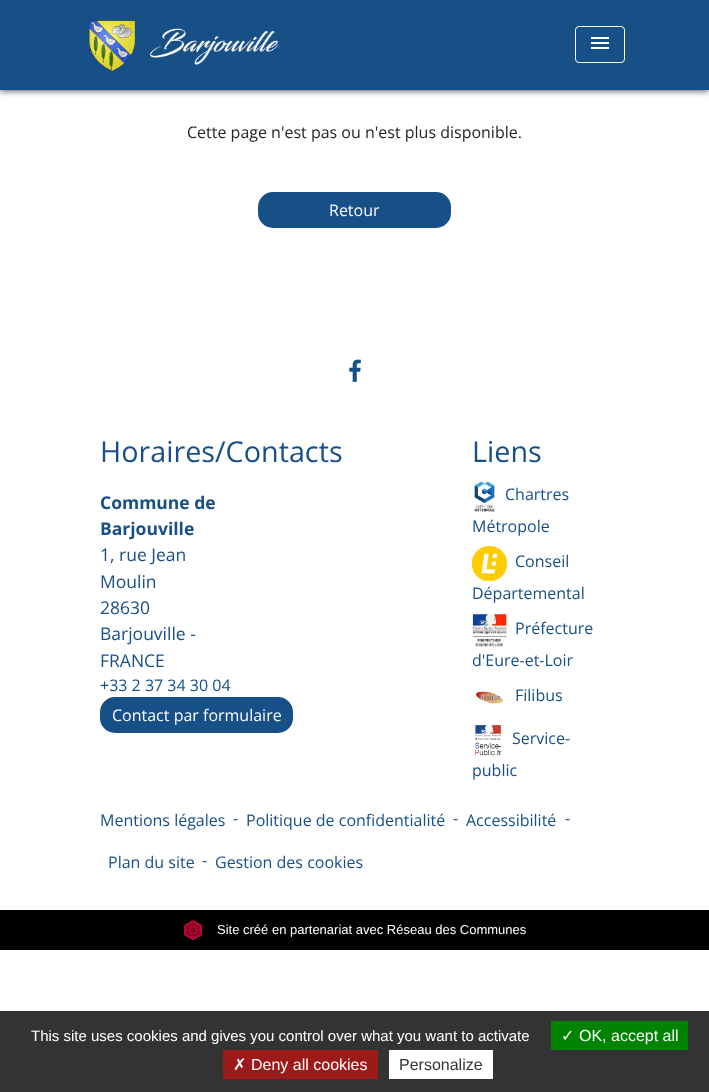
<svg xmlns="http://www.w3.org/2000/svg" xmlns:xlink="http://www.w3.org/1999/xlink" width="709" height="1092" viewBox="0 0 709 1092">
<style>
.cls-1{font:16px Open Sans;fill:#212529}
.cls-2{font:16px Open Sans;fill:#ffffff}
.cls-3{font:28.75px Open Sans;fill:#174f87}
.cls-4{font:bold 17.5px Open Sans;fill:#174f87}
.cls-5{font:17.5px Open Sans;fill:#174f87}
.cls-6{font:16px Open Sans;fill:#174f87}
.cls-7{font:13px Liberation Sans;fill:#ffffff}
.cls-8{font:15px Liberation Sans;fill:#ffffff}
.cls-9{font:16px DejaVu Sans;fill:#ffffff}
.cls-10{font:16px Liberation Sans;fill:#ffffff}
.cls-11{font:16px Liberation Sans;fill:#333333}
</style>
<rect width="100%" height="100%" fill="#ffffff"/>
<rect fill="#535353" filter="blur(3px)" x="0" y="1" width="709" height="90"/>
<rect fill="#174f87" x="0" y="0" width="709" height="90"/>
<image xlink:href="image0.png" x="88" y="20" width="192" height="52"/>
<rect fill="none" stroke="#ffffff" x="575.5" y="26.5" width="49" height="36" rx="3.5"/>
<image xlink:href="image1.png" x="591" y="37" width="18" height="12"/>
<rect fill="#174f87" x="258" y="192" width="193" height="36" rx="15"/>
<image xlink:href="image2.png" x="349" y="359" width="12" height="23"/>
<rect fill="#174f87" x="100" y="697" width="193" height="36" rx="15"/>
<image xlink:href="image3.png" x="474" y="481" width="21" height="31"/>
<image xlink:href="image4.png" x="472" y="546" width="35" height="35"/>
<image xlink:href="image5.png" x="472" y="613" width="35" height="34"/>
<image xlink:href="image6.png" x="475" y="691" width="29" height="13"/>
<image xlink:href="image7.png" x="475" y="725" width="27" height="31"/>
<rect fill="#000000" x="0" y="910" width="709" height="40"/>
<image xlink:href="image8.png" x="184" y="920" width="19" height="20"/>
<rect fill="#333333" x="0" y="1011" width="709" height="81"/>
<rect fill="#008300" x="551" y="1021" width="137" height="29"/>
<rect fill="#9c1a1a" x="223" y="1050" width="155" height="29"/>
<rect fill="#ffffff" x="389" y="1050" width="104" height="29"/>
<text class="cls-1" x="187" y="138">Cette page n'est pas ou n'est plus disponible.</text>
<text class="cls-2" x="329" y="216">Retour</text>
<text class="cls-3" x="100" y="462">Horaires/Contacts</text>
<text class="cls-4"><tspan x="100" y="509">Commune de</tspan><tspan x="100" y="535">Barjouville</tspan></text>
<text class="cls-5"><tspan x="100" y="561">1, rue Jean</tspan><tspan x="100" y="588">Moulin</tspan><tspan x="100" y="614">28630</tspan><tspan x="100" y="640">Barjouville -</tspan><tspan x="100" y="667">FRANCE</tspan></text>
<text class="cls-6" x="100" y="691">+33 2 37 34 30 04</text>
<text class="cls-2" x="112" y="721">Contact par formulaire</text>
<text class="cls-3" x="472" y="462">Liens</text>
<text class="cls-6" x="505" y="500">Chartres</text>
<text class="cls-6" x="472" y="532">Métropole</text>
<text class="cls-6" x="515" y="567">Conseil</text>
<text class="cls-6" x="472" y="599">Départemental</text>
<text class="cls-6" x="515" y="634">Préfecture</text>
<text class="cls-6" x="472" y="666">d'Eure-et-Loir</text>
<text class="cls-6" x="515" y="701">Filibus</text>
<text class="cls-6" x="512" y="744">Service-</text>
<text class="cls-6" x="472" y="776">public</text>
<text class="cls-6" x="100" y="826">Mentions légales</text>
<text class="cls-6" x="233" y="824">-</text>
<text class="cls-6" x="246" y="826">Politique de confidentialité</text>
<text class="cls-6" x="453" y="824">-</text>
<text class="cls-6" x="466" y="826">Accessibilité</text>
<text class="cls-6" x="565" y="824">-</text>
<text class="cls-6" x="108" y="868">Plan du site</text>
<text class="cls-6" x="202" y="866">-</text>
<text class="cls-6" x="215" y="868">Gestion des cookies</text>
<text class="cls-7" x="217" y="934">Site créé en partenariat avec Réseau des Communes</text>
<text class="cls-8" x="31" y="1041">This site uses cookies and gives you control over what you want to activate</text>
<text class="cls-9" x="561" y="1041">✓</text>
<text class="cls-10" x="579" y="1041">OK, accept all</text>
<text class="cls-9" x="233" y="1070">✗</text>
<text class="cls-10" x="251" y="1070">Deny all cookies</text>
<text class="cls-11" x="399" y="1070">Personalize</text>
</svg>
